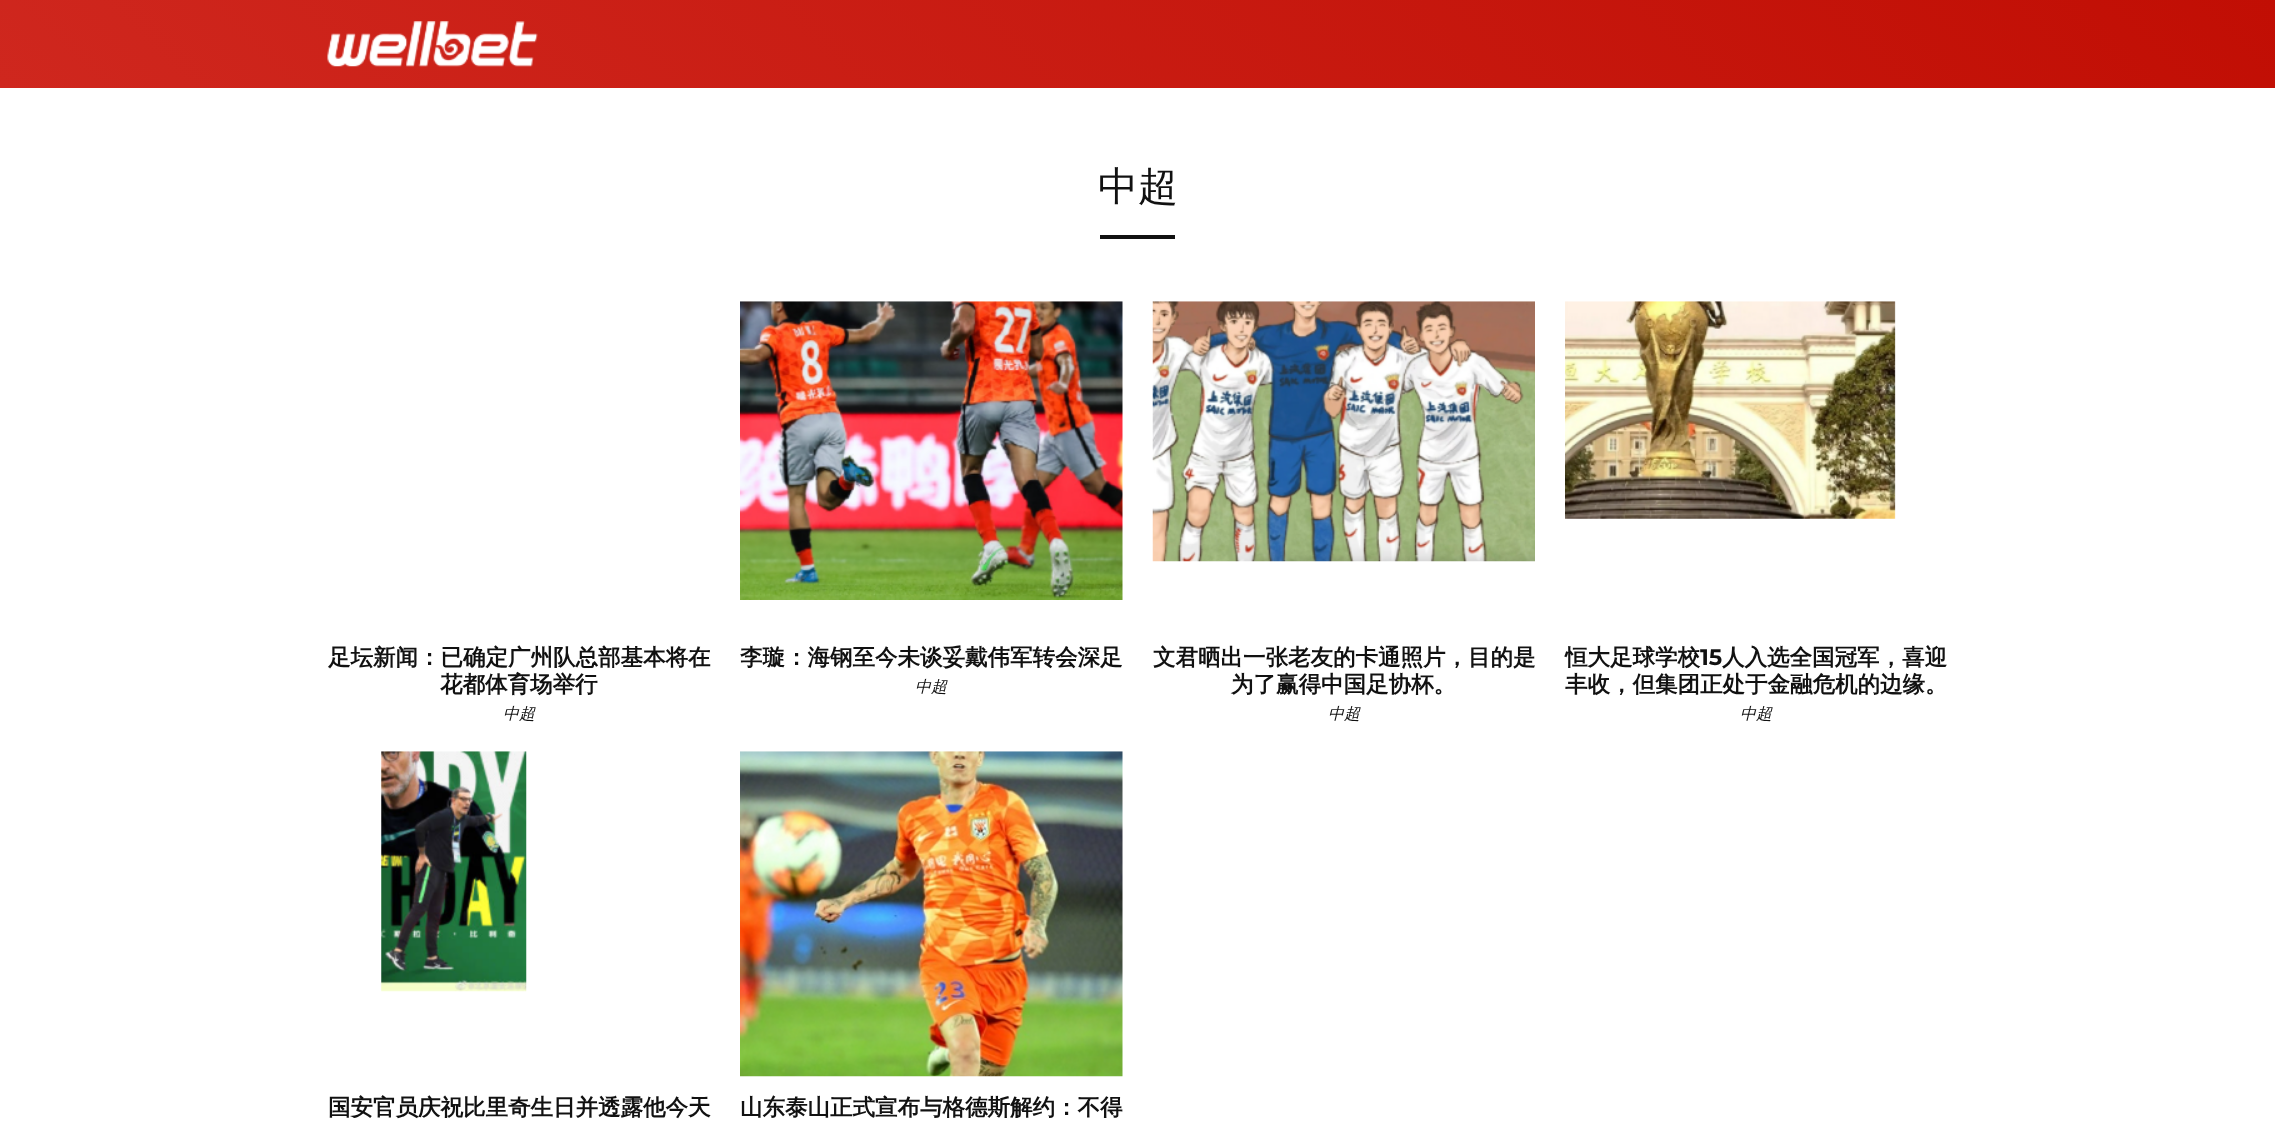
<svg xmlns="http://www.w3.org/2000/svg" xmlns:xlink="http://www.w3.org/1999/xlink" width="2275" height="1123" viewBox="0 0 2275 1123">
<style>
.cls-1{font:500 40px WenQuanYi Zen Hei;fill:#111111}
.cls-2{font:bold 22.5px WenQuanYi Zen Hei;fill:#111111}
.cls-3{font:italic 500 16px WenQuanYi Zen Hei;fill:#111111}
.cls-4{font:bold 22.5px Montserrat;fill:#111111}
</style>
<defs>
<linearGradient id="g1" gradientUnits="userSpaceOnUse" x1="547" y1="634" x2="1728" y2="-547"><stop offset="0" stop-color="#cf271e"/><stop offset="1" stop-color="#c10e04"/></linearGradient>
</defs>
<rect width="100%" height="100%" fill="#ffffff"/>
<rect fill="url(#g1)" x="0" y="0" width="2275" height="88"/>
<image xlink:href="image0.png" x="327" y="21" width="211" height="46"/>
<rect fill="#111111" x="1100" y="235" width="75" height="4"/>
<image xlink:href="image1.png" x="740" y="301" width="383" height="299"/>
<image xlink:href="image2.png" x="1152" y="301" width="383" height="261"/>
<image xlink:href="image3.png" x="1565" y="301" width="331" height="218"/>
<image xlink:href="image4.png" x="381" y="751" width="146" height="241"/>
<image xlink:href="image5.png" x="740" y="751" width="383" height="326"/>
<text class="cls-1" x="1098" y="200">中超</text>
<text class="cls-2" x="328" y="665">足坛新闻：已确定广州队总部基本将在</text>
<text class="cls-2" x="440" y="692">花都体育场举行</text>
<text class="cls-3" x="503" y="719">中超</text>
<text class="cls-2" x="740" y="665">李璇：海钢至今未谈妥戴伟军转会深足</text>
<text class="cls-3" x="915" y="692">中超</text>
<text class="cls-2" x="1153" y="665">文君晒出一张老友的卡通照片，目的是</text>
<text class="cls-2" x="1231" y="692">为了赢得中国足协杯。</text>
<text class="cls-3" x="1328" y="719">中超</text>
<text class="cls-2" x="1565" y="665">恒大足球学校</text>
<text class="cls-4" x="1700" y="665">15</text>
<text class="cls-2" x="1722" y="665">人入选全国冠军，喜迎</text>
<text class="cls-2" x="1565" y="692">丰收，但集团正处于金融危机的边缘。</text>
<text class="cls-3" x="1740" y="719">中超</text>
<text class="cls-2" x="328" y="1115">国安官员庆祝比里奇生日并透露他今天</text>
<text class="cls-2" x="740" y="1115">山东泰山正式宣布与格德斯解约：不得</text>
</svg>
